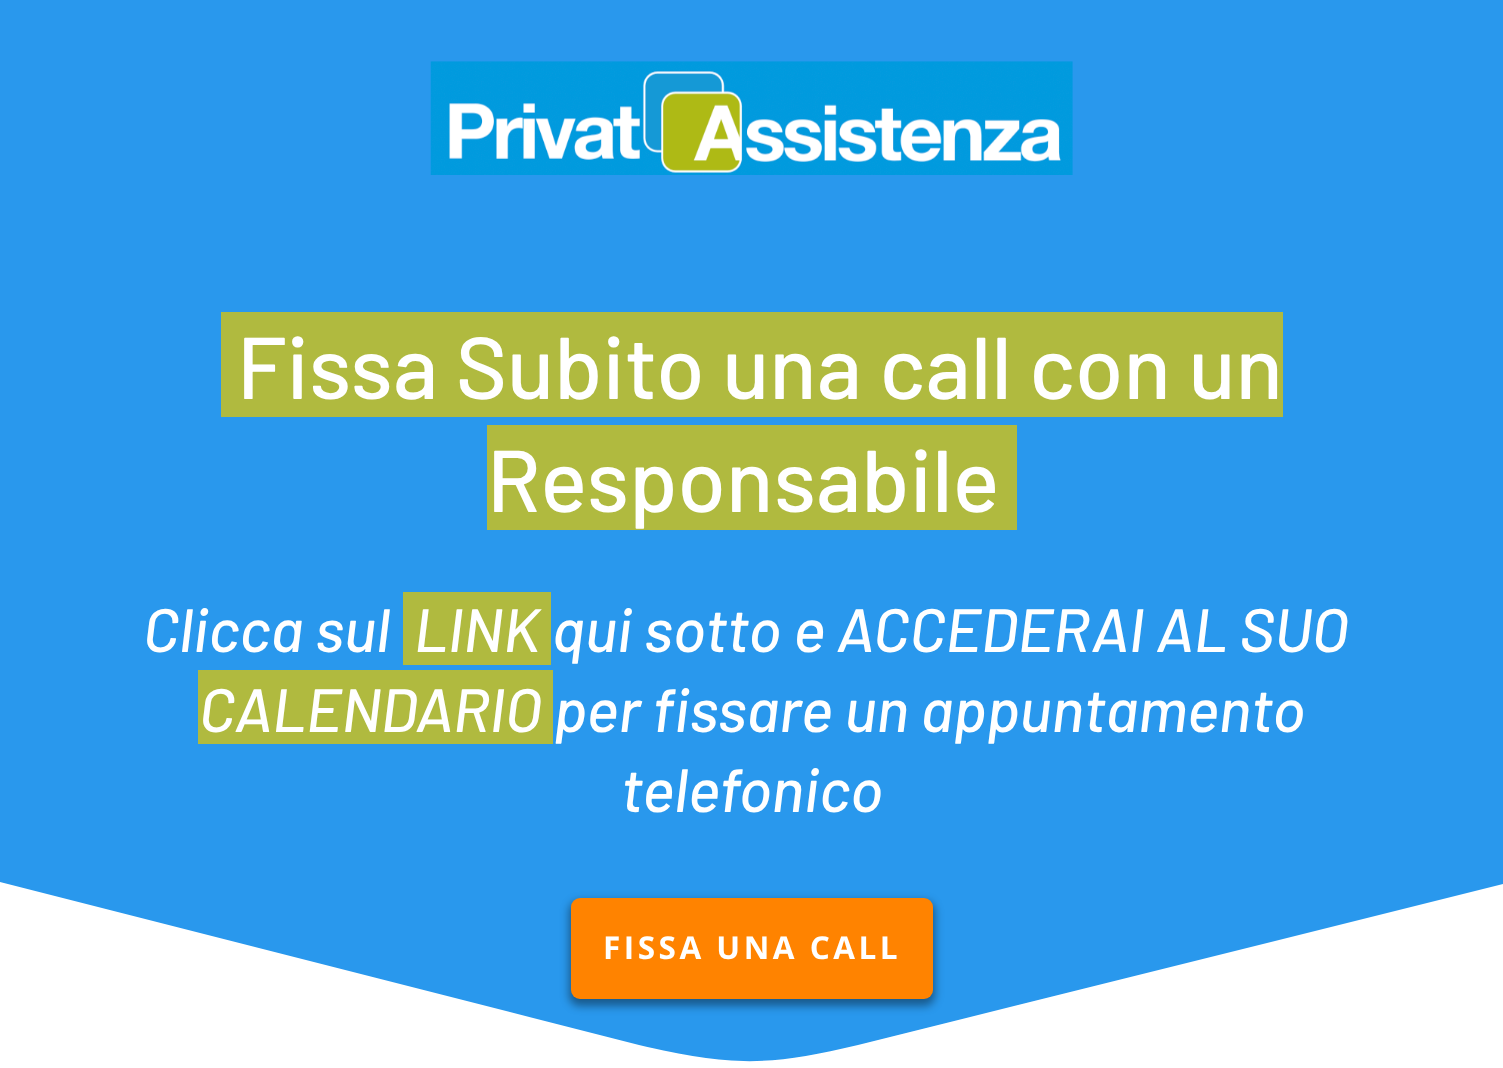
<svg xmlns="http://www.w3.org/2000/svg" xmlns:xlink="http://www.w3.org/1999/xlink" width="1503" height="1068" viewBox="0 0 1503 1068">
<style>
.cls-1{font:500 87.5px Barlow;fill:#ffffff}
.cls-2{font:italic 500 61.25px Barlow;fill:#ffffff}
.cls-3{font:bold 31.5px Open Sans;letter-spacing:3.5px;fill:#ffffff}
</style>
<rect width="100%" height="100%" fill="#2998ed"/>
<image xlink:href="image0.png" x="430" y="61" width="643" height="114"/>
<rect fill="#b0ba3f" x="221" y="312" width="1062" height="105"/>
<rect fill="#b0ba3f" x="487" y="425" width="530" height="105"/>
<rect fill="#b0ba3f" x="403" y="592" width="148" height="73"/>
<rect fill="#b0ba3f" x="198" y="670" width="355" height="74"/>
<path fill="#ffffff" d="M1503 884L858 1045C767 1067 730 1066 639 1045L0 882V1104H1503Z"/>
<rect fill="#000000" fill-opacity="0.4" filter="blur(4.5px)" x="569" y="901" width="366" height="105" rx="11"/>
<rect fill="#ff8300" x="571" y="898" width="362" height="101" rx="9"/>
<text class="cls-1" x="237" y="399">Fissa Subito una call con un</text>
<text class="cls-1" x="487" y="512">Responsabile</text>
<text class="cls-2" x="143" y="652">Clicca sul</text>
<text class="cls-2" x="414" y="652">LINK qui sotto e ACCEDERAI AL SUO</text>
<text class="cls-2" x="199" y="732">CALENDARIO per fissare un appuntamento</text>
<text class="cls-2" x="621" y="812">telefonico</text>
<text class="cls-3" x="603" y="959">FISSA UNA CALL</text>
</svg>
